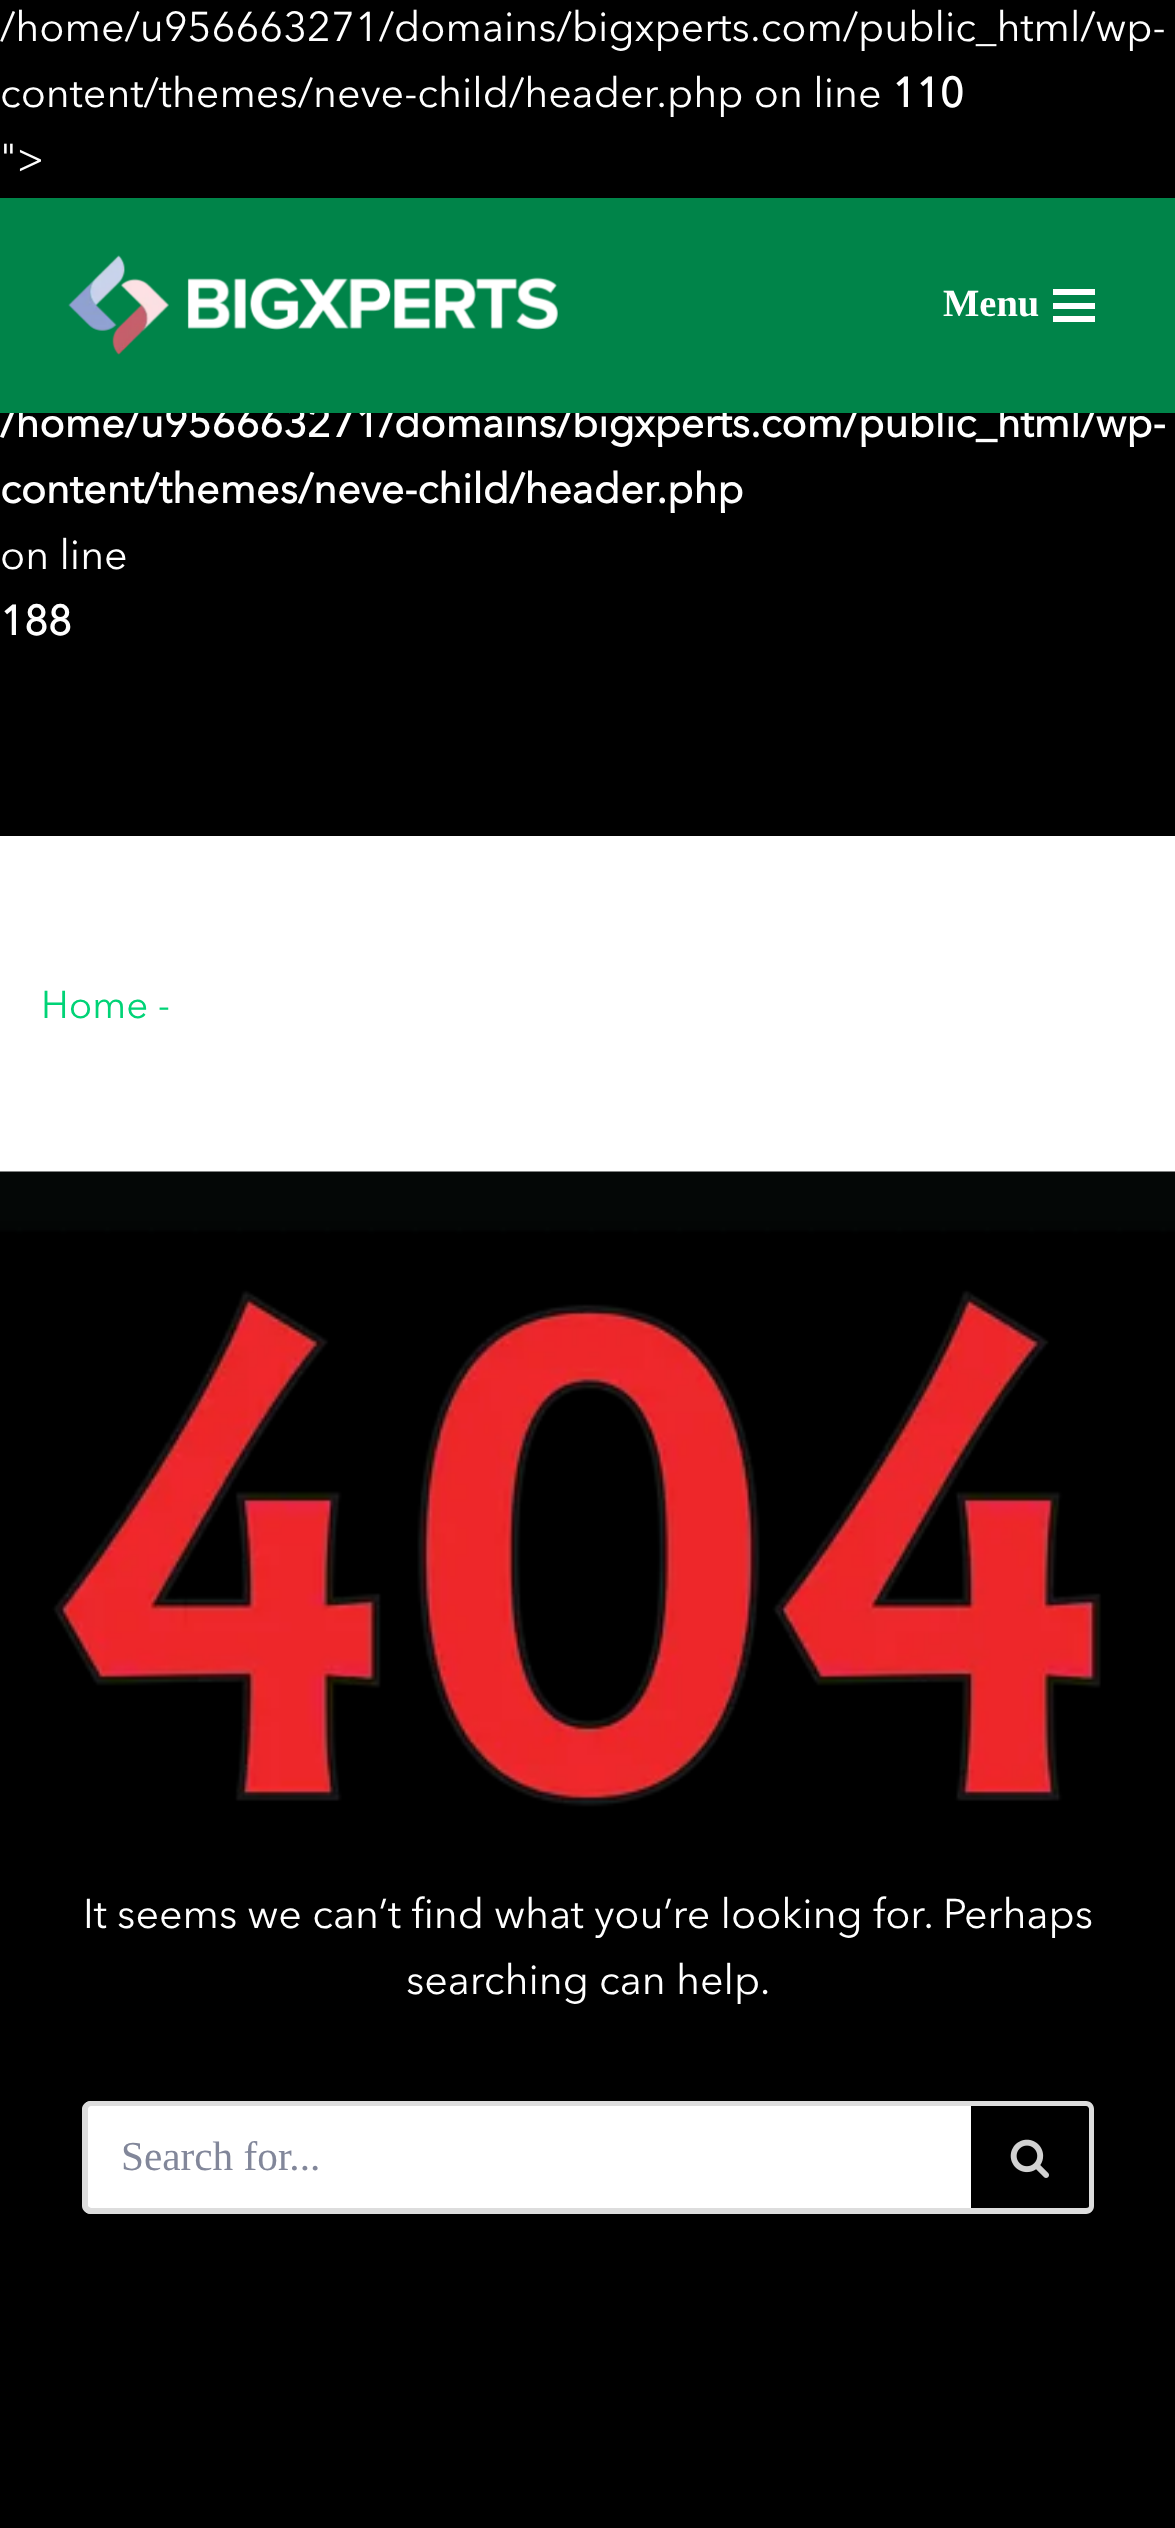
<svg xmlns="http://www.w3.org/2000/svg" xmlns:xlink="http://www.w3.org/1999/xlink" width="1175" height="2528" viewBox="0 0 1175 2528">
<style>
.cls-1{font:41.25px Avenir Next;fill:#ffffff}
.cls-2{font:bold 41.25px Avenir Next;fill:#ffffff}
.cls-3{font:bold 38.5px Liberation Serif;fill:#ffffff}
.cls-4{font:38.5px Avenir Next;fill:#00d376}
.cls-5{font:41.25px Liberation Serif;fill:#82879a}
</style>
<rect width="100%" height="100%" fill="#000000"/>
<rect fill="#ffffff" x="0" y="836" width="1175" height="336"/>
<image xlink:href="image1.png" x="0" y="1171" width="1175" height="636"/>
<path fill="#ffffff" d="M91 2101H971V2214H91C86.5 2214 83 2210.5 83 2206V2109C83 2104.5 86.5 2101 91 2101Z"/>
<path fill="#dddddd" fill-rule="evenodd" d="M91 2101H971V2214H91C86 2214 82 2210 82 2206V2109C82 2105 86 2101 91 2101ZM91 2106H971V2208H91L89 2207L88 2206V2109C88 2108 89 2106 91 2106Z"/>
<path fill="#dddddd" fill-rule="evenodd" d="M971 2101H1086C1091 2101 1094 2105 1094 2109V2206C1094 2210 1091 2214 1086 2214H971ZM971 2106H1086C1088 2106 1089 2108 1089 2109V2206C1089 2207 1088 2208 1086 2208H971Z"/>
<image xlink:href="image2.png" x="1010" y="2139" width="39" height="39"/>
<text class="cls-1"><tspan x="0" y="41">/home/u956663271/domains/bigxperts.com/public_html/wp-</tspan><tspan x="0" y="107">content/themes/neve-child/header.php on line</tspan></text>
<text class="cls-2" x="892" y="107">110</text>
<text class="cls-1" x="0" y="173">"&gt;</text>
<text class="cls-2" x="0" y="437">/home/u956663271/domains/bigxperts.com/public_html/wp-</text>
<rect fill="#008449" x="0" y="198" width="1175" height="215"/>
<rect fill="#ffffff" x="1053" y="316" width="42" height="6"/>
<rect fill="#ffffff" x="1053" y="303" width="42" height="6"/>
<rect fill="#ffffff" x="1053" y="289" width="42" height="6"/>
<text class="cls-3" x="943" y="316">Menu</text>
<image xlink:href="image0.png" x="68" y="255" width="490" height="100"/>
<text class="cls-2" x="0" y="503">content/themes/neve-child/header.php</text>
<text class="cls-1" x="0" y="569">on line</text>
<text class="cls-2" x="0" y="635">188</text>
<text class="cls-4" x="41" y="1018">Home -</text>
<text class="cls-1" x="83" y="1928">It seems we can’t find what you’re looking for. Perhaps</text>
<text class="cls-1" x="406" y="1994">searching can help.</text>
<text class="cls-5" x="121" y="2170">Search for...</text>
</svg>
